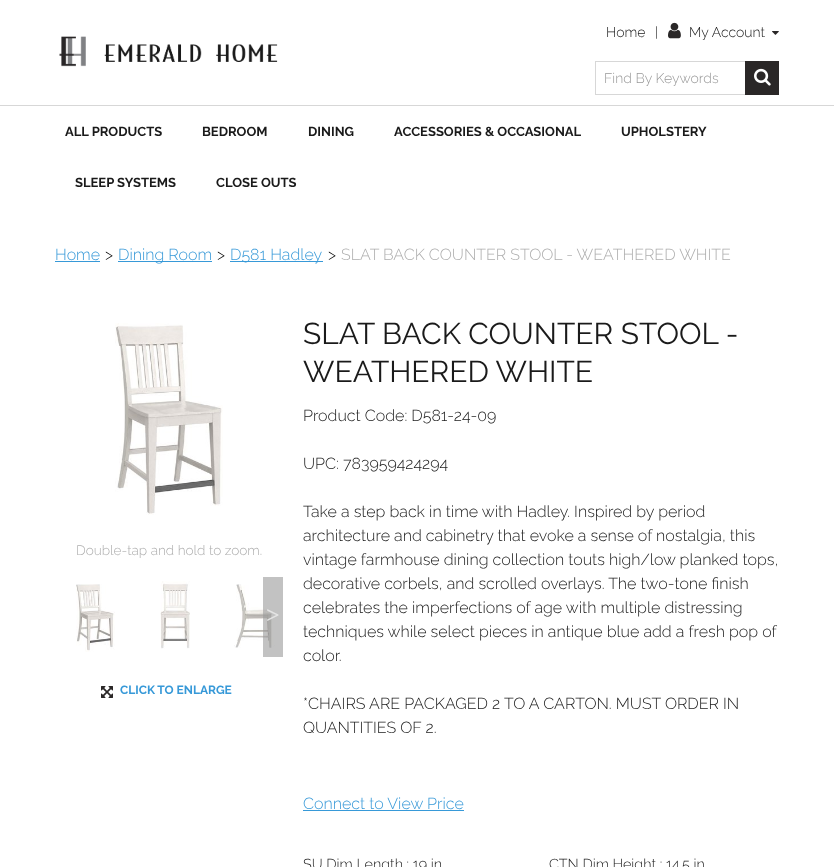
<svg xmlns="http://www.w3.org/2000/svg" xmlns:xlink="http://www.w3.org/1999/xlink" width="834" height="867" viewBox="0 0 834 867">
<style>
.cls-1{font:300 14px Raleway;fill:#1a1a1a}
.cls-2{font:300 14px Raleway;fill:#999999}
.cls-3{font:bold 13px Raleway;fill:#1a1a1a}
.cls-4{font:300 16px Raleway;fill:#3799d8}
.cls-5{font:300 16px Raleway;fill:#000000}
.cls-6{font:300 16px Raleway;fill:#aeaeae}
.cls-7{font:300 13.6px Raleway;fill:#aeaeae}
.cls-8{font:bold 24px Liberation Serif;fill:#e4e4e4}
.cls-9{font:bold 12px Raleway;fill:#3799d8}
.cls-10{font:30px Raleway;fill:#1a1a1a}
.cls-11{font:300 16px Raleway;fill:#1a1a1a}
.cls-12{font:300 14.4px Raleway;fill:#1a1a1a}
</style>
<rect width="100%" height="100%" fill="#ffffff"/>
<rect fill="#d7d7d7" x="0" y="105" width="834" height="1"/>
<image xlink:href="image0.png" x="59" y="36" width="219" height="31"/>
<image xlink:href="image1.png" x="668" y="22" width="13" height="17"/>
<image xlink:href="image2.png" x="772" y="31" width="7" height="4"/>
<rect fill="#d7d7d7" x="595" y="61" width="150" height="1"/>
<rect fill="#d7d7d7" x="595" y="94" width="150" height="1"/>
<rect fill="#d7d7d7" x="595" y="61" width="1" height="34"/>
<rect fill="#2a2727" x="745" y="61" width="34" height="34"/>
<image xlink:href="image3.png" x="754" y="68" width="17" height="18"/>
<rect fill="#3799d8" x="55" y="261" width="45" height="1"/>
<rect fill="#3799d8" x="118" y="261" width="94" height="1"/>
<rect fill="#3799d8" x="230" y="261" width="93" height="1"/>
<image xlink:href="image4.png" x="115" y="323" width="108" height="192"/>
<image xlink:href="image5.png" x="76" y="584" width="39" height="68"/>
<image xlink:href="image6.png" x="160" y="581" width="30" height="68"/>
<image xlink:href="image7.png" x="234" y="584" width="41" height="64"/>
<rect fill="#999999" fill-opacity="0.6" x="263" y="577" width="20" height="80"/>
<image xlink:href="image8.png" x="101" y="686" width="12" height="12"/>
<rect fill="#3799d8" x="303" y="810" width="161" height="1"/>
<text class="cls-1" x="606" y="37">Home</text>
<text class="cls-1" x="655" y="37">|</text>
<text class="cls-1" x="689" y="37">My Account</text>
<text class="cls-2" x="604" y="83">Find By Keywords</text>
<text class="cls-3" x="65" y="136">ALL PRODUCTS</text>
<text class="cls-3" x="202" y="136">BEDROOM</text>
<text class="cls-3" x="308" y="136">DINING</text>
<text class="cls-3" x="394" y="136">ACCESSORIES &amp; OCCASIONAL</text>
<text class="cls-3" x="621" y="136">UPHOLSTERY</text>
<text class="cls-3" x="75" y="187">SLEEP SYSTEMS</text>
<text class="cls-3" x="216" y="187">CLOSE OUTS</text>
<text class="cls-4" x="55" y="260">Home</text>
<text class="cls-5" x="105" y="260">&gt;</text>
<text class="cls-4" x="118" y="260">Dining Room</text>
<text class="cls-5" x="217" y="260">&gt;</text>
<text class="cls-4" x="230" y="260">D581 Hadley</text>
<text class="cls-5" x="328" y="260">&gt;</text>
<text class="cls-6" x="341" y="260">SLAT BACK COUNTER STOOL - WEATHERED WHITE</text>
<text class="cls-7" x="76" y="555">Double-tap and hold to zoom.</text>
<text class="cls-8" x="266" y="623">&gt;</text>
<text class="cls-9" x="120" y="694">CLICK TO ENLARGE</text>
<text class="cls-10"><tspan x="303" y="344">SLAT BACK COUNTER STOOL -</tspan><tspan x="303" y="382">WEATHERED WHITE</tspan></text>
<text class="cls-11" x="303" y="421">Product Code: D581-24-09</text>
<text class="cls-11" x="303" y="469">UPC: 783959424294</text>
<text class="cls-11"><tspan x="303" y="517">Take a step back in time with Hadley. Inspired by period</tspan><tspan x="303" y="541">architecture and cabinetry that evoke a sense of nostalgia, this</tspan><tspan x="303" y="565">vintage farmhouse dining collection touts high/low planked tops,</tspan><tspan x="303" y="589">decorative corbels, and scrolled overlays. The two-tone finish</tspan><tspan x="303" y="613">celebrates the imperfections of age with multiple distressing</tspan><tspan x="303" y="637">techniques while select pieces in antique blue add a fresh pop of</tspan><tspan x="303" y="661">color.</tspan></text>
<text class="cls-11"><tspan x="303" y="709">*CHAIRS ARE PACKAGED 2 TO A CARTON. MUST ORDER IN</tspan><tspan x="303" y="733">QUANTITIES OF 2.</tspan></text>
<text class="cls-4" x="303" y="809">Connect to View Price</text>
<text class="cls-12" x="303" y="869">SU Dim Length : 19 in</text>
<text class="cls-12" x="549" y="869">CTN Dim Height : 14.5 in</text>
</svg>
